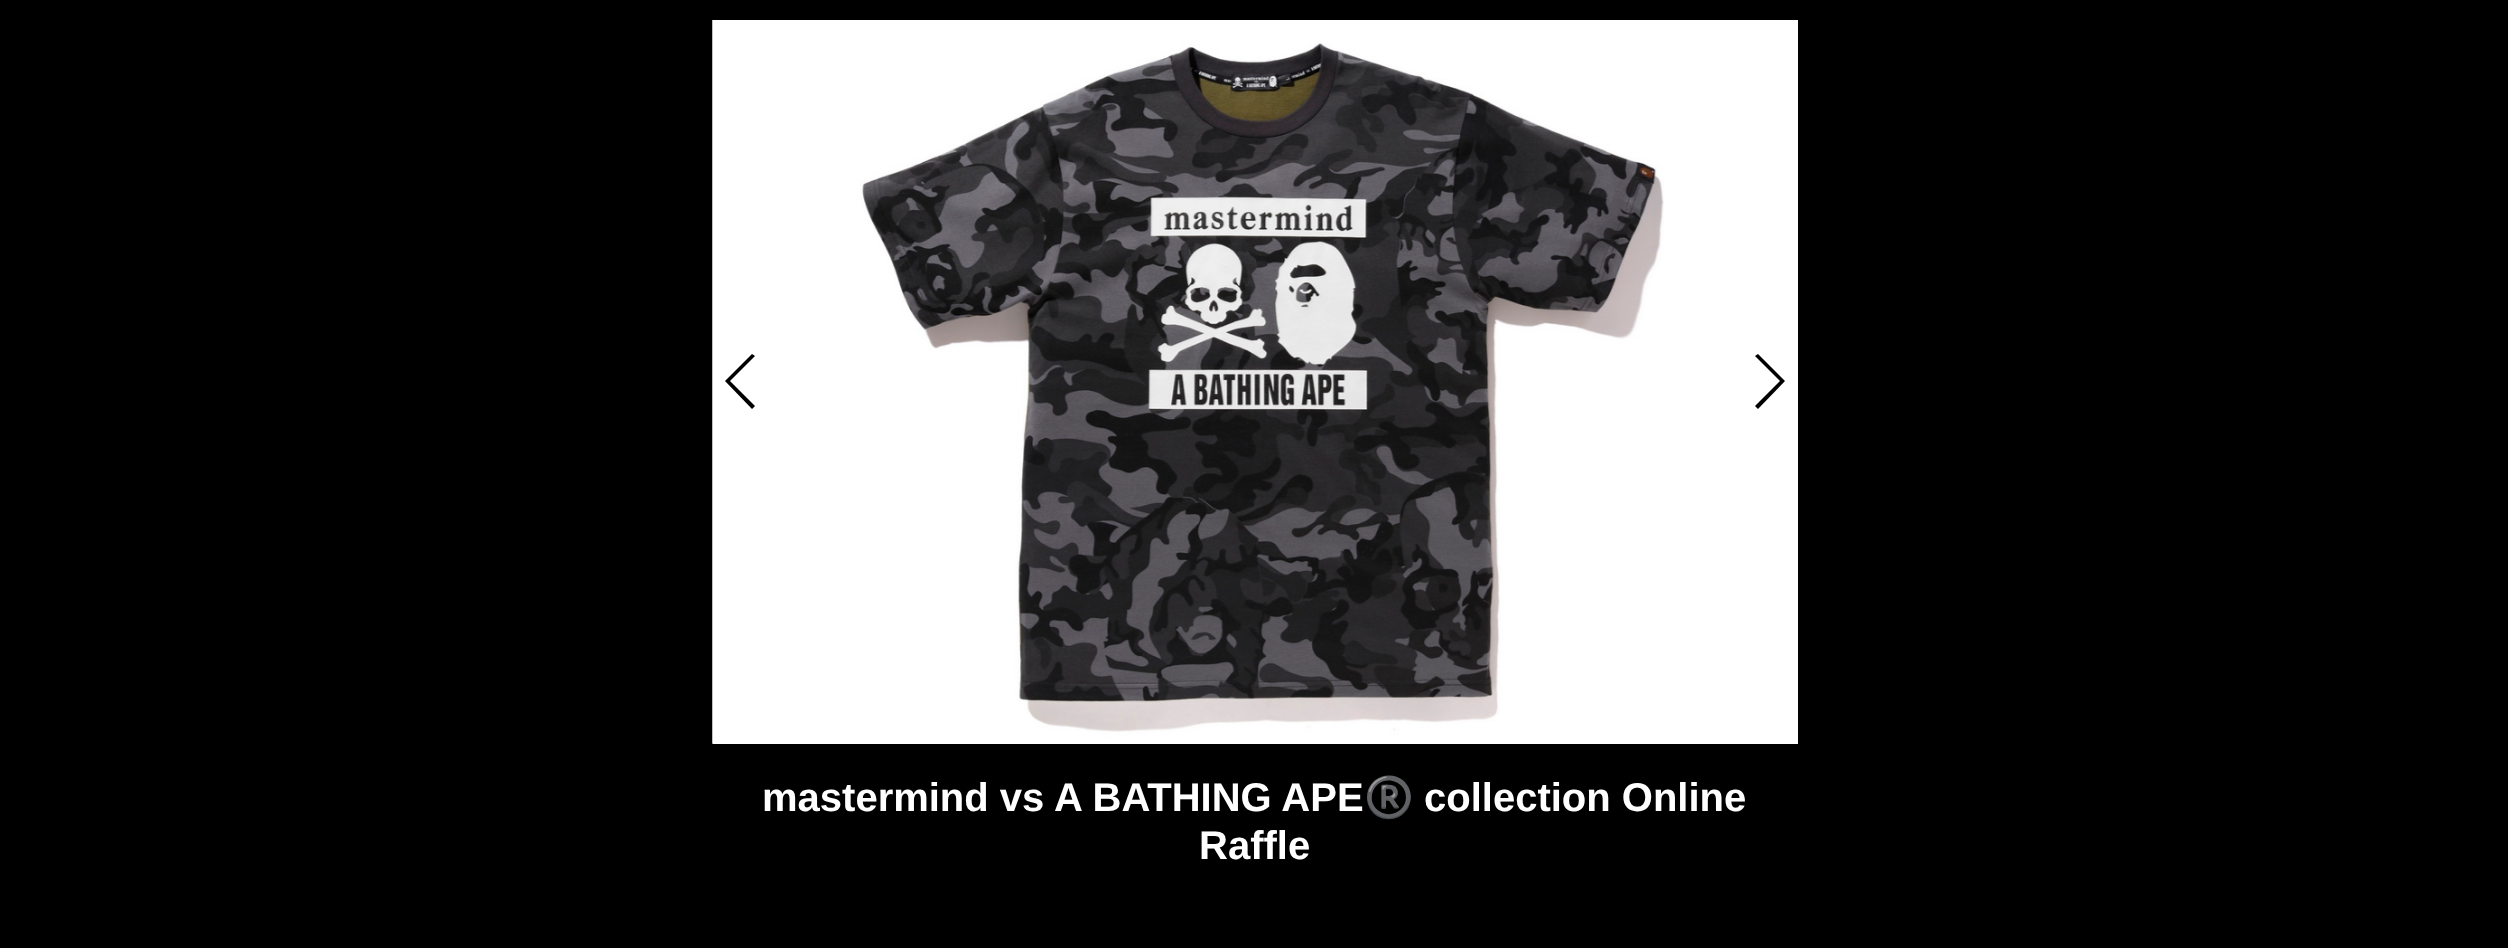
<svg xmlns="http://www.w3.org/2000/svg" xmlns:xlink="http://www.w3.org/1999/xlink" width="2508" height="948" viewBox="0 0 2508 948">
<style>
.cls-1{font:bold 40px Liberation Sans;fill:#ffffff}
.cls-2{font:bold 40px Noto Color Emoji;fill:#ffffff}
</style>
<rect width="100%" height="100%" fill="#000000"/>
<rect fill="#ffffff" x="713" y="20" width="1085" height="724"/>
<image xlink:href="image0.png" x="712" y="20" width="952" height="724"/>
<path fill="#000000" d="M725 381L752 354L755 356L730 381L755 406L752 409Z"/>
<path fill="#000000" d="M1785 381L1758 409L1755 406L1780 381L1755 356L1758 354Z"/>
<text class="cls-1" x="762" y="811">mastermind vs A BATHING APE</text>
<text class="cls-2" x="1364" y="811">®️</text>
<text class="cls-1" x="1424" y="811">collection Online</text>
<text class="cls-1" x="1199" y="859">Raffle</text>
</svg>
